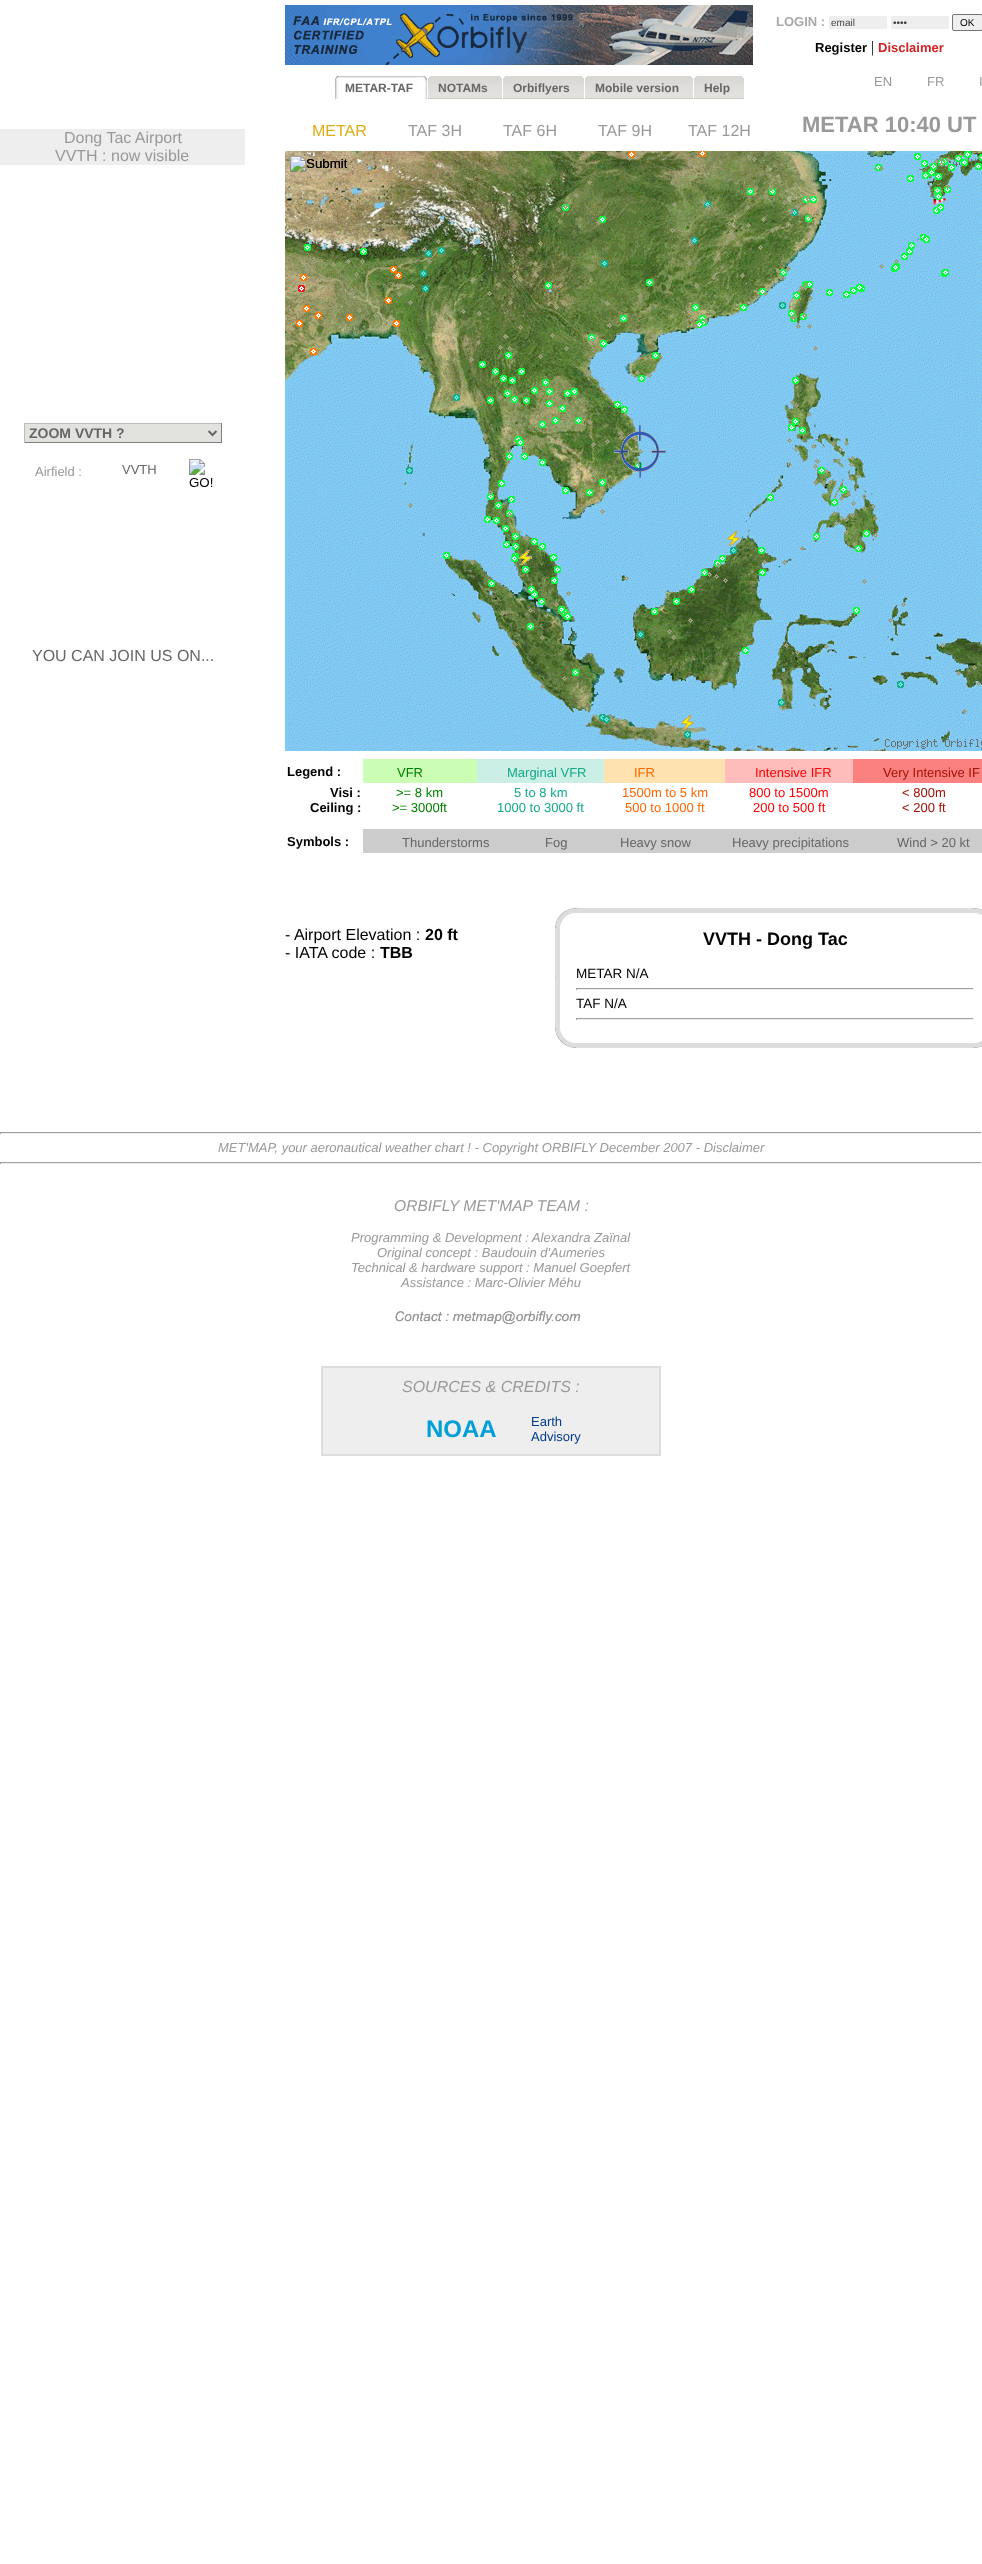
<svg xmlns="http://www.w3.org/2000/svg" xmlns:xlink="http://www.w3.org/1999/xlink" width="982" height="2564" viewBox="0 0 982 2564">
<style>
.cls-1{font:bold 13px Liberation Sans;fill:#aaaaaa}
.cls-2{font:10px Liberation Sans;fill:#444444}
.cls-3{font:10px Liberation Sans;fill:#000000}
.cls-4{font:bold 13px Liberation Sans;fill:#000000}
.cls-5{font:16px Liberation Serif;fill:#000000}
.cls-6{font:bold 13px Liberation Sans;fill:#d42020}
.cls-7{font:13px Liberation Sans;fill:#999999}
.cls-8{font:16px Liberation Sans;fill:#999999}
.cls-9{font:bold 14px Liberation Sans;fill:#666666}
.cls-10{font:13px Liberation Sans;fill:#666666}
.cls-11{font:16px Liberation Sans;fill:#666666}
.cls-12{font:bold 12px Liberation Sans;fill:#666666}
.cls-13{font:16px Liberation Sans;fill:#dcaf11}
.cls-14{font:bold 22px Liberation Sans;fill:#999999}
.cls-15{font:13px Liberation Sans;fill:#008000}
.cls-16{font:13px Liberation Sans;fill:#14aa8c}
.cls-17{font:13px Liberation Sans;fill:#ff6600}
.cls-18{font:13px Liberation Sans;fill:#ff0000}
.cls-19{font:13px Liberation Sans;fill:#a41204}
.cls-20{font:16px Liberation Sans;fill:#000000}
.cls-21{font:bold 16px Liberation Sans;fill:#000000}
.cls-22{font:bold 18px Liberation Sans;fill:#000000}
.cls-23{font:13.5px Liberation Sans;fill:#000000}
.cls-24{font:italic 13px Liberation Sans;fill:#999999}
.cls-25{font:italic 15.6px Liberation Sans;fill:#999999}
.cls-26{font:italic 16px Liberation Sans;fill:#999999}
.cls-27{font:bold 24px Liberation Sans;fill:#009fd7}
.cls-28{font:13px Liberation Sans;fill:#033b8d}
</style>
<rect width="100%" height="100%" fill="#ffffff"/>
<image xlink:href="image0.png" x="285" y="5" width="468" height="60"/>
<rect fill="#eeeeee" x="829" y="16" width="58" height="13"/>
<rect fill="#eeeeee" x="891" y="16" width="58" height="13"/>
<rect fill="#efefef" stroke="#767676" x="952.5" y="14.5" width="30" height="16" rx="1.5"/>
<rect fill="#eeeeee" x="0" y="129" width="245" height="36"/>
<rect fill="#e2e2de" x="25" y="424" width="196" height="18"/>
<rect fill="#bbbbbb" x="24" y="423" width="198" height="1"/>
<rect fill="#7d7d7d" x="221" y="423" width="1" height="20"/>
<rect fill="#7d7d7d" x="24" y="442" width="198" height="1"/>
<rect fill="#bbbbbb" x="24" y="423" width="1" height="20"/>
<path fill="none" stroke="#666666" stroke-width="2" d="M208.5 431L212.5 435L216.5 431"/>
<image xlink:href="image1.png" x="189" y="459" width="24" height="28"/>
<image xlink:href="image2.png" x="335" y="76" width="4" height="23"/>
<image xlink:href="image3.png" x="339" y="76" width="89" height="23"/>
<image xlink:href="image4.png" x="428" y="76" width="4" height="23"/>
<image xlink:href="image5.png" x="432" y="76" width="70" height="23"/>
<image xlink:href="image4.png" x="503" y="76" width="4" height="23"/>
<image xlink:href="image6.png" x="507" y="76" width="77" height="23"/>
<image xlink:href="image4.png" x="585" y="76" width="4" height="23"/>
<image xlink:href="image7.png" x="589" y="76" width="104" height="23"/>
<image xlink:href="image4.png" x="694" y="76" width="4" height="23"/>
<image xlink:href="image8.png" x="698" y="76" width="46" height="23"/>
<image xlink:href="image9.png" x="285" y="151" width="697" height="600"/>
<image xlink:href="image10.png" x="296" y="151" width="686" height="598"/>
<image xlink:href="image11.png" x="290" y="156" width="57" height="16"/>
<image xlink:href="image12.png" x="296" y="156" width="51" height="16"/>
<rect fill="#ccfdb5" x="363" y="759" width="114" height="24"/>
<rect fill="#cbefe5" x="477" y="759" width="127" height="24"/>
<rect fill="#fee3b1" x="604" y="759" width="121" height="24"/>
<rect fill="#febcba" x="725" y="759" width="128" height="24"/>
<rect fill="#fb8181" x="853" y="759" width="129" height="24"/>
<rect fill="#cccccc" x="363" y="829" width="619" height="24"/>
<image xlink:href="image13.png" x="555" y="908" width="21" height="21"/>
<rect fill="#dddddd" x="576" y="908" width="398" height="5"/>
<image xlink:href="image14.png" x="576" y="908" width="2" height="1"/>
<image xlink:href="image15.png" x="974" y="908" width="8" height="7"/>
<rect fill="#dddddd" x="555" y="929" width="5" height="98"/>
<image xlink:href="image16.png" x="555" y="977" width="1" height="2"/>
<rect fill="#9f9f9f" x="576" y="988" width="398" height="1"/>
<rect fill="#eeeeee" x="973" y="988" width="1" height="2"/>
<rect fill="#eeeeee" x="576" y="989" width="398" height="1"/>
<rect fill="#9f9f9f" x="576" y="988" width="1" height="2"/>
<rect fill="#9f9f9f" x="576" y="1018" width="398" height="1"/>
<rect fill="#eeeeee" x="973" y="1018" width="1" height="2"/>
<rect fill="#eeeeee" x="576" y="1019" width="398" height="1"/>
<rect fill="#9f9f9f" x="576" y="1018" width="1" height="2"/>
<image xlink:href="image17.png" x="555" y="1027" width="21" height="21"/>
<rect fill="#dddddd" x="576" y="1043" width="398" height="5"/>
<image xlink:href="image18.png" x="974" y="1041" width="8" height="7"/>
<rect fill="#9f9f9f" x="0" y="1132" width="982" height="1"/>
<rect fill="#eeeeee" x="981" y="1132" width="1" height="2"/>
<rect fill="#eeeeee" x="0" y="1133" width="982" height="1"/>
<rect fill="#9f9f9f" x="0" y="1132" width="1" height="2"/>
<rect fill="#9f9f9f" x="0" y="1162" width="982" height="1"/>
<rect fill="#eeeeee" x="981" y="1162" width="1" height="2"/>
<rect fill="#eeeeee" x="0" y="1163" width="982" height="1"/>
<rect fill="#9f9f9f" x="0" y="1162" width="1" height="2"/>
<image xlink:href="image19.png" x="395" y="1311" width="186" height="14"/>
<rect fill="#eeeeee" x="323" y="1368" width="336" height="86"/>
<rect fill="none" stroke="#dddddd" x="321.5" y="1366.5" width="339" height="89"/>
<rect fill="none" stroke="#dddddd" x="322.5" y="1367.5" width="337" height="87"/>
<text class="cls-1" x="776" y="26">LOGIN :</text>
<text class="cls-2" x="831" y="26">email</text>
<text class="cls-2" x="893" y="26">••••</text>
<text class="cls-3" x="960" y="26">OK</text>
<text class="cls-4" x="815" y="52">Register</text>
<text class="cls-5" x="871" y="52">|</text>
<text class="cls-6" x="878" y="52">Disclaimer</text>
<text class="cls-7" x="874" y="86">EN</text>
<text class="cls-7" x="927" y="86">FR</text>
<text class="cls-7" x="979" y="86">I</text>
<text class="cls-8" x="64" y="143">Dong Tac Airport</text>
<text class="cls-8" x="55" y="161">VVTH : now visible</text>
<text class="cls-9" x="29" y="438">ZOOM VVTH ?</text>
<text class="cls-7" x="35" y="476">Airfield :</text>
<text class="cls-10" x="122" y="474">VVTH</text>
<text class="cls-11" x="32" y="661">YOU CAN JOIN US ON...</text>
<text class="cls-12" x="345" y="92">METAR-TAF</text>
<text class="cls-12" x="438" y="92">NOTAMs</text>
<text class="cls-12" x="513" y="92">Orbiflyers</text>
<text class="cls-12" x="595" y="92">Mobile version</text>
<text class="cls-12" x="704" y="92">Help</text>
<text class="cls-13" x="312" y="136">METAR</text>
<text class="cls-8" x="408" y="136">TAF 3H</text>
<text class="cls-8" x="503" y="136">TAF 6H</text>
<text class="cls-8" x="598" y="136">TAF 9H</text>
<text class="cls-8" x="688" y="136">TAF 12H</text>
<text class="cls-14" x="802" y="132">METAR 10:40 UT</text>
<text class="cls-4" x="287" y="776">Legend :</text>
<text class="cls-15" x="397" y="777">VFR</text>
<text class="cls-16" x="507" y="777">Marginal VFR</text>
<text class="cls-17" x="634" y="777">IFR</text>
<text class="cls-18" x="755" y="777">Intensive IFR</text>
<text class="cls-19" x="883" y="777">Very Intensive IF</text>
<text class="cls-4" x="330" y="797">Visi :</text>
<text class="cls-4" x="310" y="812">Ceiling :</text>
<text class="cls-15" x="396" y="797">&gt;= 8 km</text>
<text class="cls-15" x="392" y="812">&gt;= 3000ft</text>
<text class="cls-16" x="514" y="797">5 to 8 km</text>
<text class="cls-16" x="497" y="812">1000 to 3000 ft</text>
<text class="cls-17" x="622" y="797">1500m to 5 km</text>
<text class="cls-17" x="625" y="812">500 to 1000 ft</text>
<text class="cls-18" x="749" y="797">800 to 1500m</text>
<text class="cls-18" x="753" y="812">200 to 500 ft</text>
<text class="cls-19"><tspan x="902" y="797">&lt; 800m</tspan><tspan x="902" y="812">&lt; 200 ft</tspan></text>
<text class="cls-4" x="287" y="846">Symbols :</text>
<text class="cls-10" x="402" y="847">Thunderstorms</text>
<text class="cls-10" x="545" y="847">Fog</text>
<text class="cls-10" x="620" y="847">Heavy snow</text>
<text class="cls-10" x="732" y="847">Heavy precipitations</text>
<text class="cls-10" x="897" y="847">Wind &gt; 20 kt</text>
<text class="cls-20" x="285" y="940">- Airport Elevation :</text>
<text class="cls-21" x="425" y="940">20 ft</text>
<text class="cls-20" x="285" y="958">- IATA code :</text>
<text class="cls-21" x="380" y="958">TBB</text>
<text class="cls-22" x="703" y="945">VVTH - Dong Tac</text>
<text class="cls-23" x="576" y="978">METAR N/A</text>
<text class="cls-23" x="576" y="1008">TAF N/A</text>
<text class="cls-24" x="218" y="1152">MET'MAP, your aeronautical weather chart ! - Copyright ORBIFLY December 2007 - Disclaimer</text>
<text class="cls-25" x="394" y="1211">ORBIFLY MET'MAP TEAM :</text>
<text class="cls-24" x="351" y="1242">Programming &amp; Development : Alexandra Zaïnal</text>
<text class="cls-24" x="377" y="1257">Original concept : Baudouin d'Aumeries</text>
<text class="cls-24" x="351" y="1272">Technical &amp; hardware support : Manuel Goepfert</text>
<text class="cls-24" x="401" y="1287">Assistance : Marc-Olivier Méhu</text>
<text class="cls-26" x="402" y="1392">SOURCES &amp; CREDITS :</text>
<text class="cls-27" x="426" y="1437">NOAA</text>
<text class="cls-28"><tspan x="531" y="1426">Earth</tspan><tspan x="531" y="1441">Advisory</tspan></text>
</svg>
